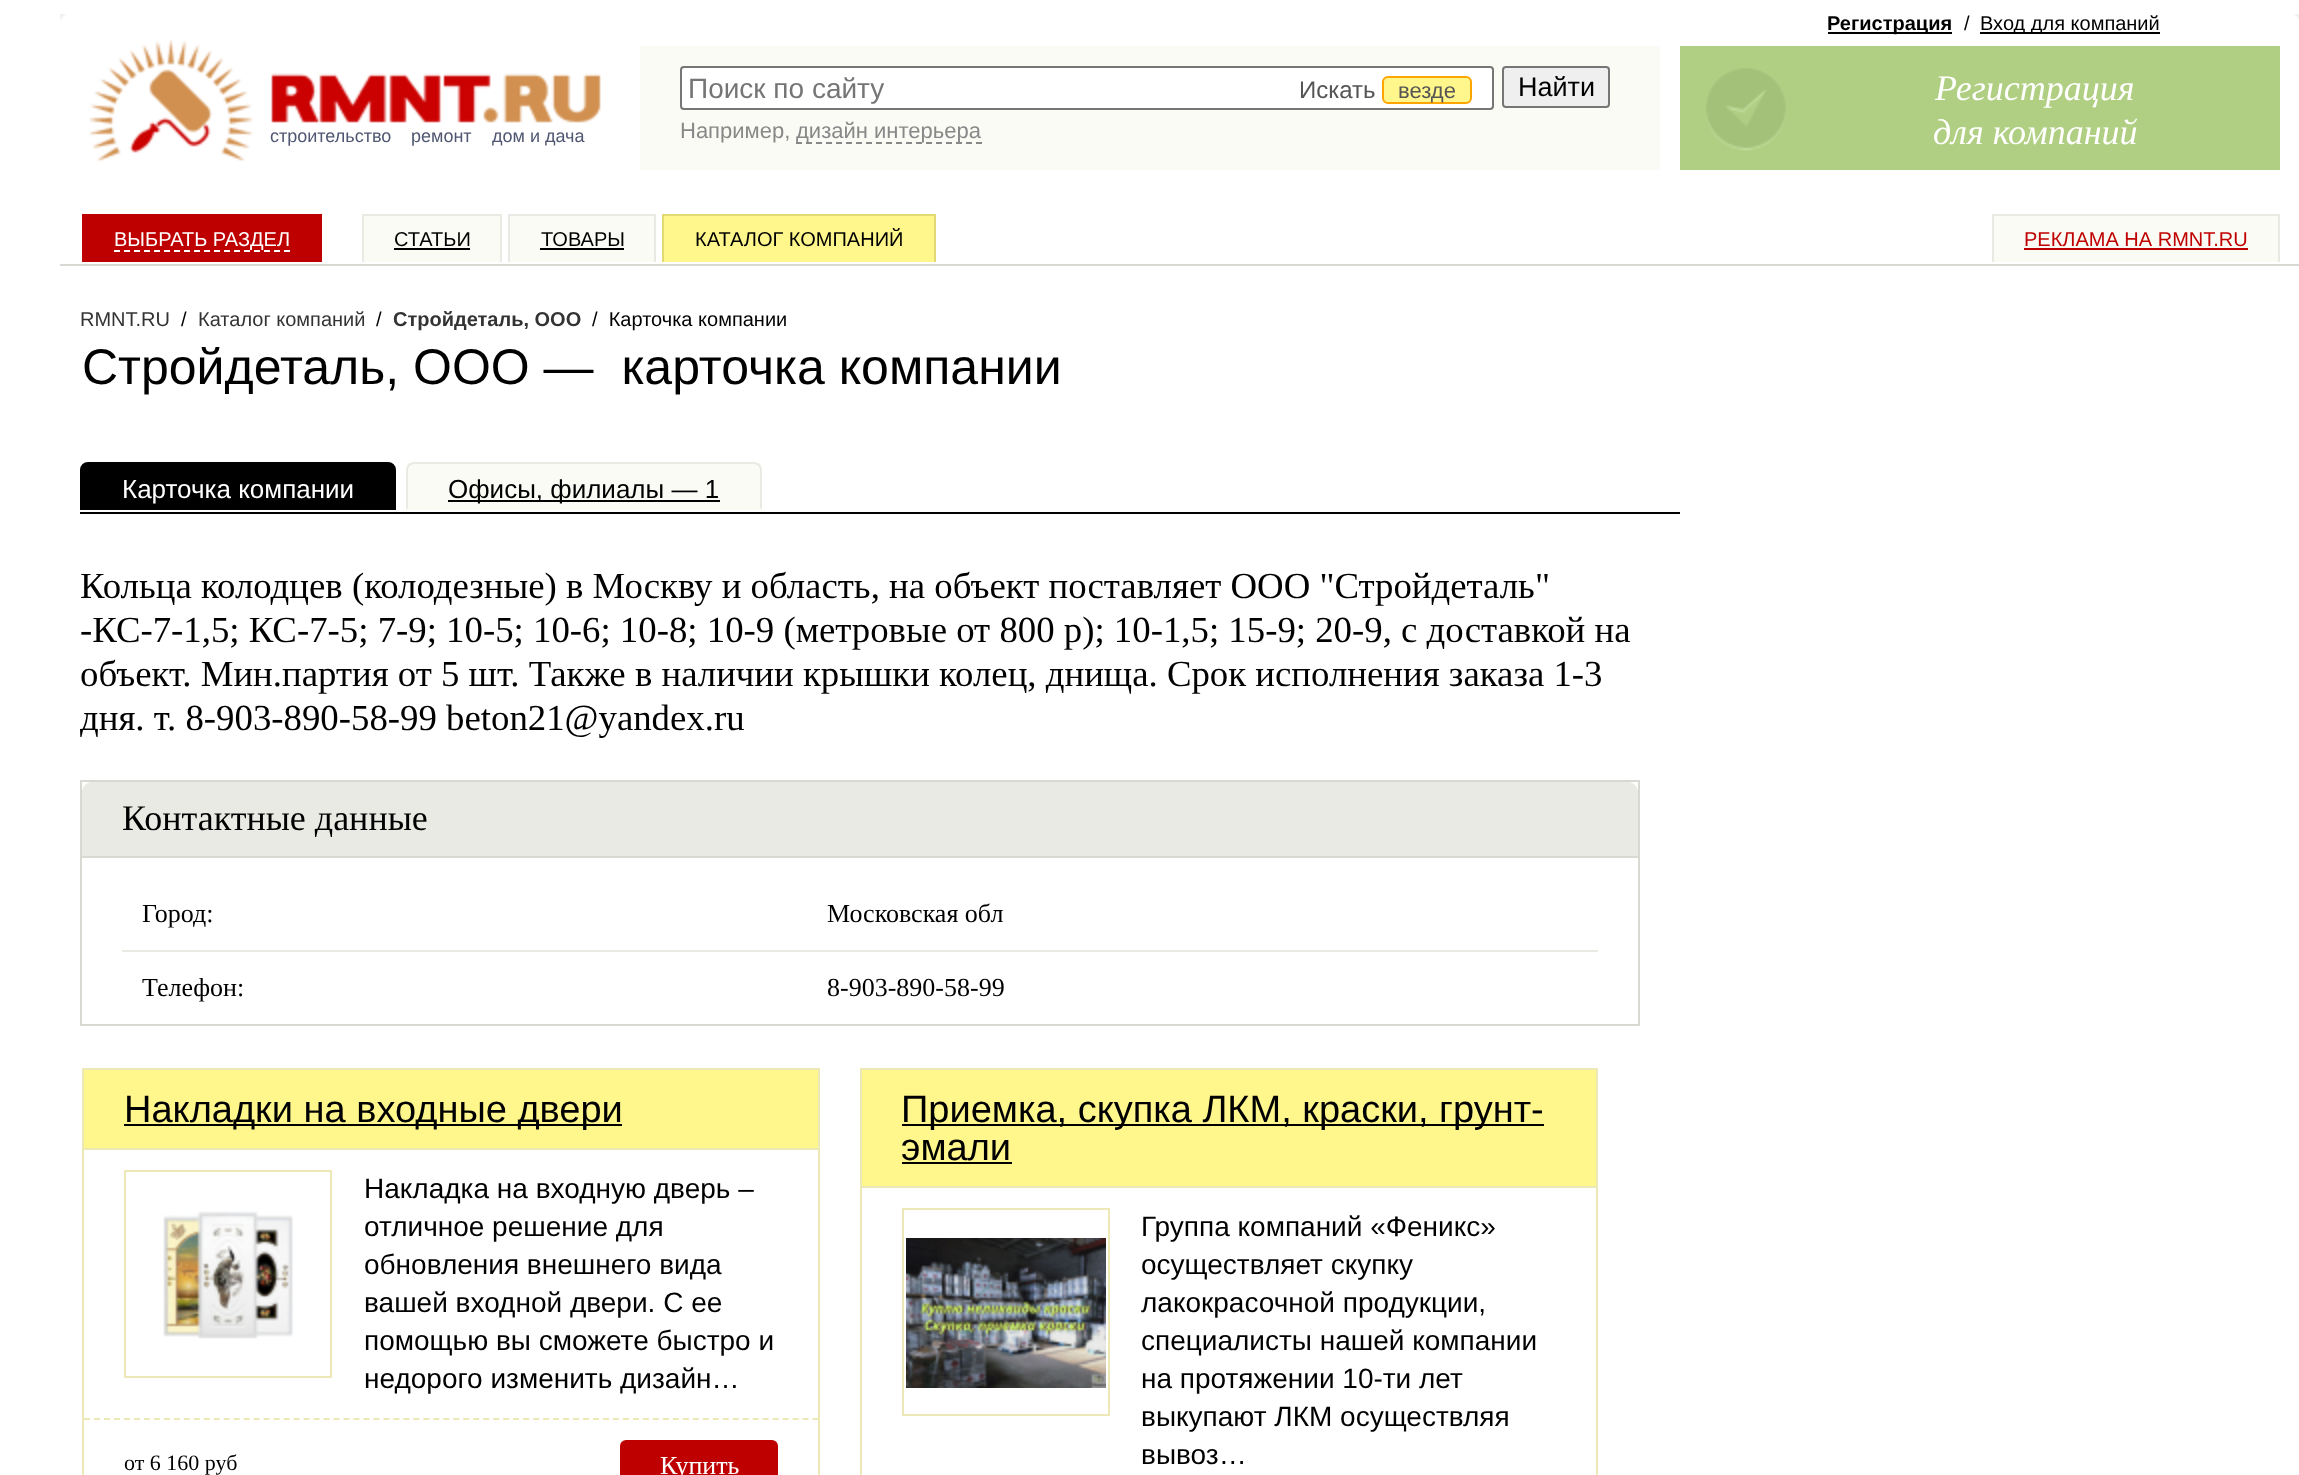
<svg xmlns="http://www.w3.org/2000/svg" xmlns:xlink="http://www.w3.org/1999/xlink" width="2299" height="1475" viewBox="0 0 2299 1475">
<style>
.cls-1{font:18px Liberation Sans;fill:#4f5772}
.cls-2{font:28px Liberation Sans;fill:#757575}
.cls-3{font:24px Liberation Sans;fill:#555555}
.cls-4{font:22px Liberation Sans;fill:#555555}
.cls-5{font:27px Liberation Sans;fill:#000000}
.cls-6{font:22px Liberation Sans;fill:#888888}
.cls-7{font:bold 20px Liberation Sans;fill:#000000}
.cls-8{font:20px Liberation Sans;fill:#000000}
.cls-9{font:italic 36px Liberation Serif;fill:#ffffff}
.cls-10{font:20px Liberation Sans;fill:#ffffff}
.cls-11{font:20px Liberation Sans;fill:#bf0000}
.cls-12{font:20px Liberation Sans;fill:#333333}
.cls-13{font:bold 20px Liberation Sans;fill:#333333}
.cls-14{font:50px Liberation Sans;fill:#000000}
.cls-15{font:26px Liberation Sans;fill:#ffffff}
.cls-16{font:26px Liberation Sans;fill:#000000}
.cls-17{font:36.8px Liberation Serif;fill:#000000}
.cls-18{font:36px Liberation Serif;fill:#000000}
.cls-19{font:26px Liberation Serif;fill:#000000}
.cls-20{font:38px Liberation Sans;fill:#000000}
.cls-21{font:28px Liberation Sans;fill:#000000}
.cls-22{font:22px Liberation Serif;fill:#000000}
.cls-23{font:26px Liberation Serif;fill:#ffffff}
</style>
<rect width="100%" height="100%" fill="#ffffff"/>
<image xlink:href="image0.png" x="60" y="14" width="6" height="6"/>
<image xlink:href="image1.png" x="89" y="40" width="512" height="122"/>
<rect fill="#fbfbf5" x="640" y="46" width="1020" height="124"/>
<rect fill="#ffffff" stroke="#767676" stroke-width="2" x="681" y="67" width="812" height="42" rx="3"/>
<rect fill="#fff78c" stroke="#ffa500" stroke-width="2" x="1383" y="77" width="88" height="26" rx="5"/>
<rect fill="#efefef" stroke="#767676" stroke-width="2" x="1503" y="67" width="106" height="40" rx="3"/>
<path fill="none" stroke="#888888" stroke-width="2" stroke-dasharray="6 4" d="M796 143H982"/>
<rect fill="#000000" x="1828" y="32" width="124" height="2"/>
<rect fill="#000000" x="1980" y="32" width="180" height="2"/>
<rect fill="#b1cf83" x="1680" y="46" width="600" height="124"/>
<image xlink:href="image2.png" x="1706" y="68" width="80" height="83"/>
<rect fill="#d9d9d3" x="60" y="264" width="2239" height="2"/>
<rect fill="#bf0000" x="82" y="214" width="240" height="48"/>
<path fill="none" stroke="#ffffff" stroke-width="2" stroke-dasharray="6 4" d="M114 251H290"/>
<rect fill="#fbfbf5" x="364" y="216" width="136" height="46"/>
<rect fill="#eaeae4" x="362" y="214" width="140" height="2"/>
<rect fill="#eaeae4" x="500" y="214" width="2" height="48"/>
<rect fill="#eaeae4" x="362" y="214" width="2" height="48"/>
<rect fill="#000000" x="394" y="248" width="76" height="2"/>
<rect fill="#fbfbf5" x="510" y="216" width="144" height="46"/>
<rect fill="#eaeae4" x="508" y="214" width="148" height="2"/>
<rect fill="#eaeae4" x="654" y="214" width="2" height="48"/>
<rect fill="#eaeae4" x="508" y="214" width="2" height="48"/>
<rect fill="#000000" x="540" y="248" width="84" height="2"/>
<rect fill="#fff78c" x="664" y="216" width="270" height="46"/>
<rect fill="#e1d974" x="662" y="214" width="274" height="2"/>
<rect fill="#e1d974" x="934" y="214" width="2" height="48"/>
<rect fill="#e1d974" x="662" y="214" width="2" height="48"/>
<rect fill="#fbfbf5" x="1994" y="216" width="284" height="46"/>
<rect fill="#eaeae4" x="1992" y="214" width="288" height="2"/>
<rect fill="#eaeae4" x="2278" y="214" width="2" height="48"/>
<rect fill="#eaeae4" x="1992" y="214" width="2" height="48"/>
<rect fill="#bf0000" x="2024" y="248" width="224" height="2"/>
<rect fill="#000000" x="80" y="512" width="1600" height="2"/>
<path fill="#000000" stroke="#000000" stroke-width="2" d="M88 463H388C392 463 395 466 395 470V509H81V470C81 466 84 463 88 463Z"/>
<path fill="#fbfbf5" d="M414 462H754C758.5 462 762 465.5 762 470V510H406V470C406 465.5 409.5 462 414 462Z"/>
<path fill="#eaeae4" d="M414 462C412 462 410 463 408 464L410 466C411 465 412 464 414 464H754C756 464 757 465 758 466L760 464C758 463 756 462 754 462Z"/>
<path fill="#eaeae4" d="M762 510V470C762 468 761 466 760 464L758 466C759 467 760 468 760 470V508Z"/>
<path fill="#fbfbf5" d="M762 510L760 508H408L406 510Z"/>
<path fill="#eaeae4" d="M406 510L408 508V470C408 468 409 467 410 466L408 464C407 466 406 468 406 470Z"/>
<rect fill="#000000" x="448" y="500" width="272" height="2"/>
<rect fill="none" stroke="#d9d9d3" stroke-width="2" x="81" y="781" width="1558" height="244"/>
<path fill="#eaeae4" d="M92 782H1628C1633.5 782 1638 786.5 1638 792V858H82V792C82 786.5 86.5 782 92 782Z"/>
<rect fill="#d9d9d3" x="82" y="856" width="1556" height="2"/>
<rect fill="#eaeae4" x="122" y="950" width="1476" height="2"/>
<rect fill="none" stroke="#ede9b6" stroke-width="2" x="83" y="1069" width="736" height="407"/>
<rect fill="#fff78c" x="84" y="1070" width="734" height="78"/>
<rect fill="#ede9b6" x="84" y="1148" width="734" height="2"/>
<rect fill="#000000" x="124" y="1124" width="498" height="2"/>
<image xlink:href="image3.png" x="163" y="1211" width="131" height="128"/>
<rect fill="none" stroke="#ede9b6" stroke-width="2" x="125" y="1171" width="206" height="206"/>
<path fill="none" stroke="#ede9b6" stroke-width="2" stroke-dasharray="6 3.98" d="M84 1419H818"/>
<rect fill="#bf0000" x="620" y="1440" width="158" height="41" rx="6"/>
<rect fill="none" stroke="#ede9b6" stroke-width="2" x="861" y="1069" width="736" height="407"/>
<rect fill="#fff78c" x="862" y="1070" width="734" height="116"/>
<rect fill="#ede9b6" x="862" y="1186" width="734" height="2"/>
<rect fill="#000000" x="902" y="1124" width="642" height="2"/>
<rect fill="#000000" x="902" y="1162" width="110" height="2"/>
<image xlink:href="image4.png" x="906" y="1238" width="200" height="150"/>
<rect fill="none" stroke="#ede9b6" stroke-width="2" x="903" y="1209" width="206" height="206"/>
<image xlink:href="image5.png" x="2294" y="14" width="5" height="6"/>
<text class="cls-1" x="270" y="142">строительство</text>
<text class="cls-1" x="411" y="142">ремонт</text>
<text class="cls-1" x="492" y="142">дом и дача</text>
<text class="cls-2" x="688" y="98">Поиск по сайту</text>
<text class="cls-3" x="1299" y="98">Искать</text>
<text class="cls-4" x="1398" y="98">везде</text>
<text class="cls-5" x="1518" y="96">Найти</text>
<text class="cls-6" x="680" y="138">Например,</text>
<text class="cls-6" x="796" y="138">дизайн интерьера</text>
<text class="cls-7" x="1827" y="30">Регистрация</text>
<text class="cls-8" x="1964" y="30">/</text>
<text class="cls-8" x="1980" y="30">Вход для компаний</text>
<text class="cls-9" x="1935" y="100">Регистрация</text>
<text class="cls-9" x="1933" y="144">для компаний</text>
<text class="cls-10" x="114" y="246">ВЫБРАТЬ РАЗДЕЛ</text>
<text class="cls-8" x="394" y="246">СТАТЬИ</text>
<text class="cls-8" x="541" y="246">ТОВАРЫ</text>
<text class="cls-8" x="695" y="246">КАТАЛОГ КОМПАНИЙ</text>
<text class="cls-11" x="2024" y="246">РЕКЛАМА НА RMNT.RU</text>
<text class="cls-12" x="80" y="326">RMNT.RU</text>
<text class="cls-8" x="181" y="326">/</text>
<text class="cls-12" x="198" y="326">Каталог компаний</text>
<text class="cls-8" x="376" y="326">/</text>
<text class="cls-13" x="393" y="326">Стройдеталь, ООО</text>
<text class="cls-8" xml:space="preserve" x="592" y="326">/  Карточка компании</text>
<text class="cls-14" xml:space="preserve" x="82" y="384">Стройдеталь, ООО —  карточка компании</text>
<text class="cls-15" x="122" y="498">Карточка компании</text>
<text class="cls-16" x="448" y="498">Офисы, филиалы — 1</text>
<text class="cls-17"><tspan x="80" y="598">Кольца колодцев (колодезные) в Москву и область, на объект поставляет ООО "Стройдеталь"</tspan><tspan x="80" y="642">-КС-7-1,5; КС-7-5; 7-9; 10-5; 10-6; 10-8; 10-9 (метровые от 800 р); 10-1,5; 15-9; 20-9, с доставкой на</tspan><tspan x="80" y="686">объект. Мин.партия от 5 шт. Также в наличии крышки колец, днища. Срок исполнения заказа 1-3</tspan><tspan x="80" y="730">дня. т. 8-903-890-58-99 beton21@yandex.ru</tspan></text>
<text class="cls-18" x="122" y="830">Контактные данные</text>
<text class="cls-19" x="142" y="922">Город:</text>
<text class="cls-19" x="827" y="922">Московская обл</text>
<text class="cls-19" x="142" y="996">Телефон:</text>
<text class="cls-19" x="827" y="996">8-903-890-58-99</text>
<text class="cls-20" x="124" y="1122">Накладки на входные двери</text>
<text class="cls-21"><tspan x="364" y="1198">Накладка на входную дверь –</tspan><tspan x="364" y="1236">отличное решение для</tspan><tspan x="364" y="1274">обновления внешнего вида</tspan><tspan x="364" y="1312">вашей входной двери. С ее</tspan><tspan x="364" y="1350">помощью вы сможете быстро и</tspan><tspan x="364" y="1388">недорого изменить дизайн…</tspan></text>
<text class="cls-22" x="124" y="1470">от 6 160 руб</text>
<text class="cls-23" x="660" y="1474">Купить</text>
<text class="cls-20"><tspan x="901" y="1122">Приемка, скупка ЛКМ, краски, грунт-</tspan><tspan x="901" y="1160">эмали</tspan></text>
<text class="cls-21"><tspan x="1141" y="1236">Группа компаний «Феникс»</tspan><tspan x="1141" y="1274">осуществляет скупку</tspan><tspan x="1141" y="1312">лакокрасочной продукции,</tspan><tspan x="1141" y="1350">специалисты нашей компании</tspan><tspan x="1141" y="1388">на протяжении 10-ти лет</tspan><tspan x="1141" y="1426">выкупают ЛКМ осуществляя</tspan><tspan x="1141" y="1464">вывоз…</tspan></text>
</svg>
